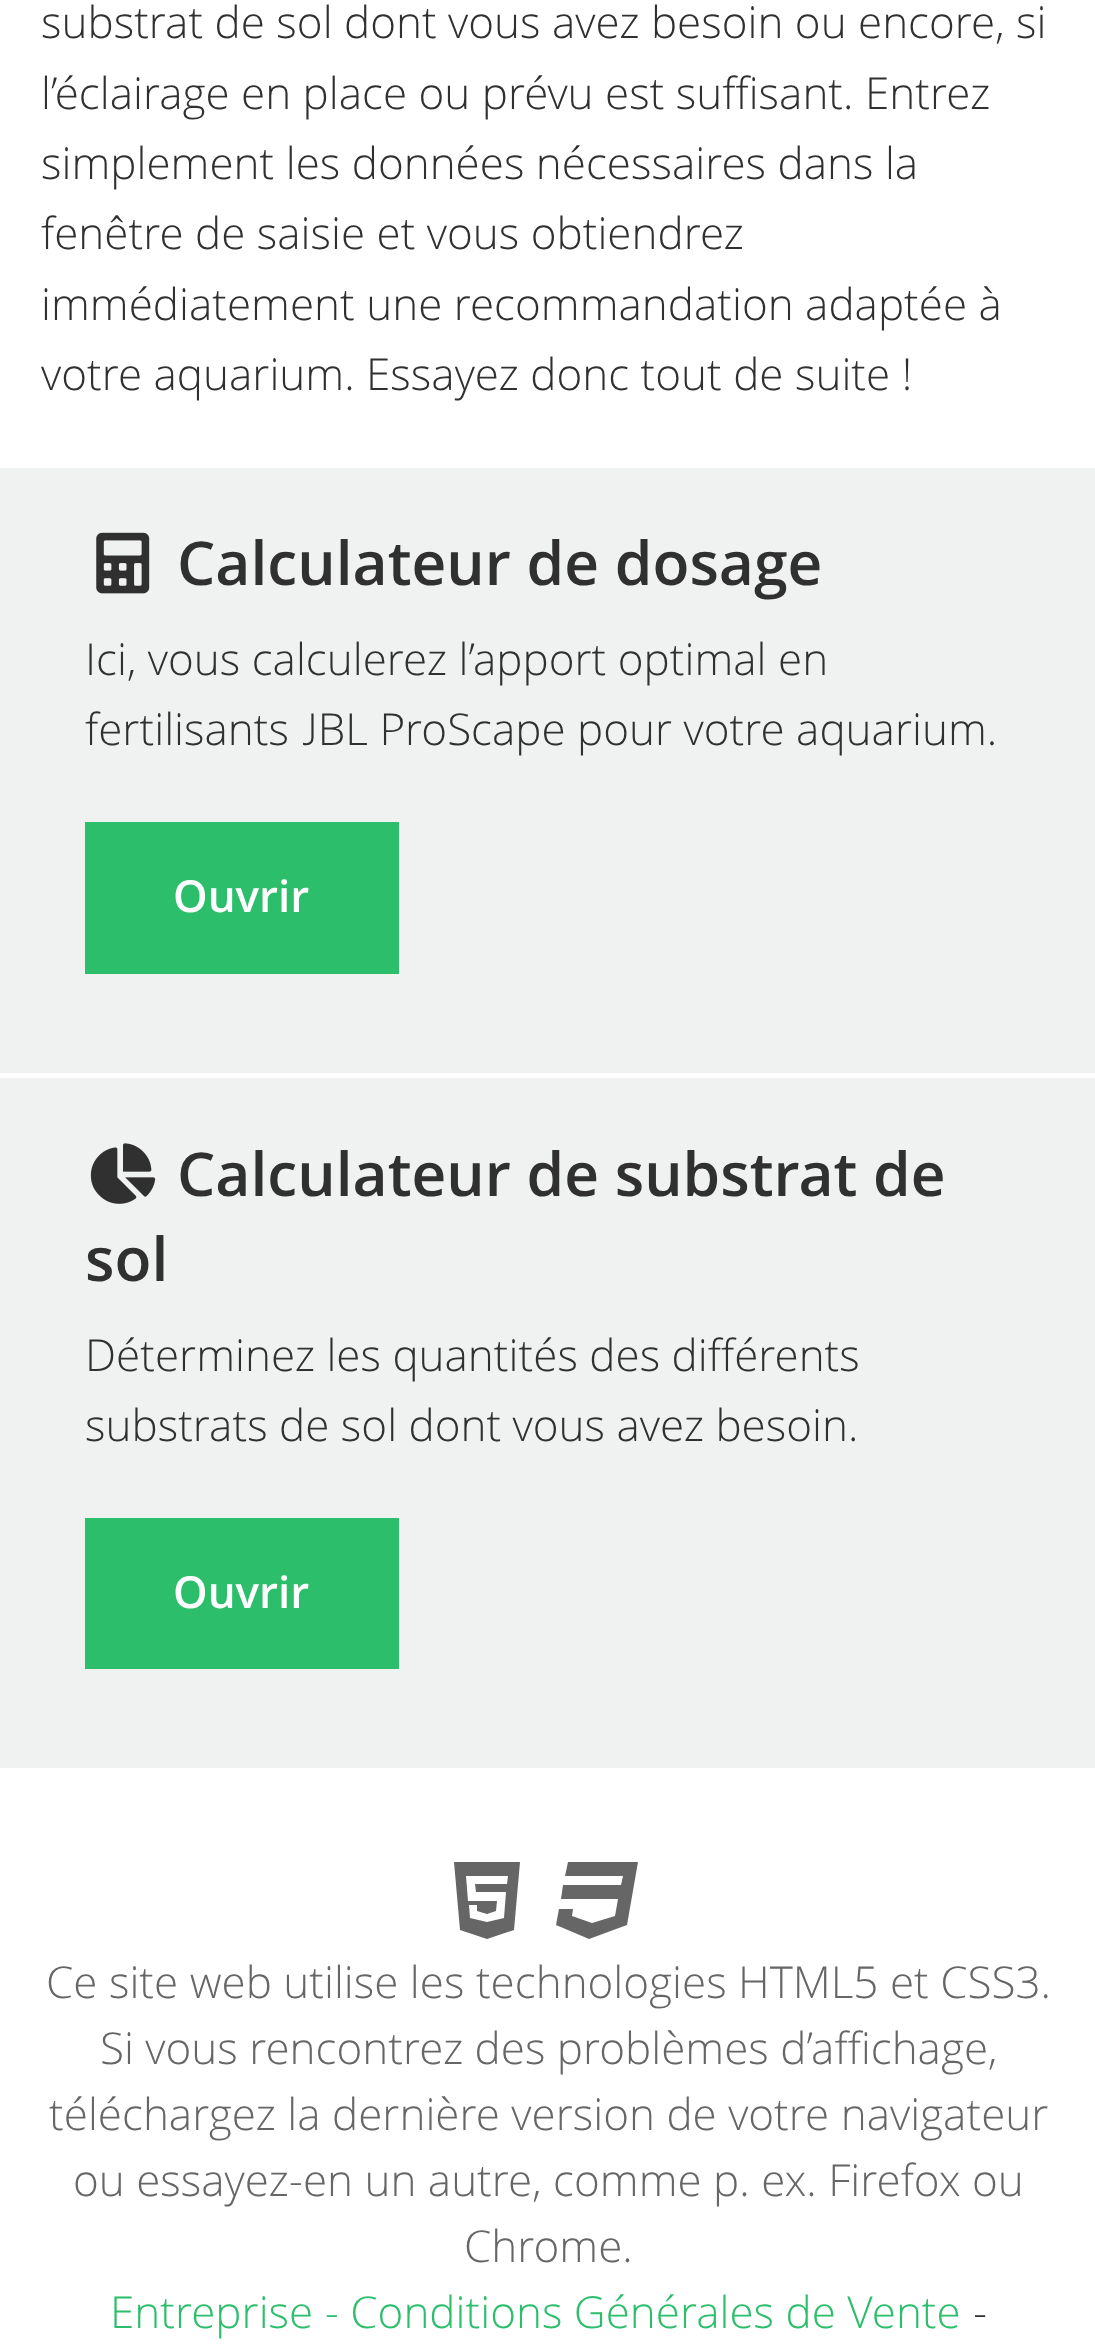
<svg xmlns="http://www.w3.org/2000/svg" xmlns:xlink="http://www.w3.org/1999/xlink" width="1095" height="2350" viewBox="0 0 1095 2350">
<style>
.cls-1{font:300 44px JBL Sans;fill:#303030}
.cls-2{font:600 60.5px JBL Sans;fill:#303030}
.cls-3{font:600 44px JBL Sans;fill:#ffffff}
.cls-4{font:300 44px JBL Sans;fill:#666666}
.cls-5{font:300 44px JBL Sans;fill:#2dbe6b}
</style>
<rect width="100%" height="100%" fill="#ffffff"/>
<rect fill="#eff2f0" x="0" y="468" width="1095" height="605"/>
<image xlink:href="image0.png" x="96" y="532" width="54" height="62"/>
<rect fill="#2dbe6b" x="85" y="822" width="314" height="152"/>
<rect fill="#eff2f0" x="0" y="1078" width="1095" height="690"/>
<image xlink:href="image1.png" x="90" y="1143" width="66" height="61"/>
<rect fill="#2dbe6b" x="85" y="1518" width="314" height="151"/>
<path fill="#666666" d="M454 1862H520L514 1930L487 1939L460 1930ZM507 1884L508 1876H466L468 1901H497L496 1911L487 1914L477 1911V1905H469L470 1918L487 1922L504 1918L506 1892H476L475 1884Z"/>
<path fill="#666666" d="M638 1862L627 1925L589 1939L556 1925L559 1909H573L572 1916L592 1923L615 1916L618 1899H561L563 1885H621L623 1876H565L568 1862Z"/>
<text class="cls-1"><tspan x="41" y="38">substrat de sol dont vous avez besoin ou encore, si</tspan><tspan x="41" y="109">l’éclairage en place ou prévu est suffisant. Entrez</tspan><tspan x="41" y="179">simplement les données nécessaires dans la</tspan><tspan x="41" y="249">fenêtre de saisie et vous obtiendrez</tspan><tspan x="41" y="320">immédiatement une recommandation adaptée à</tspan><tspan x="41" y="390">votre aquarium. Essayez donc tout de suite !</tspan></text>
<text class="cls-2" x="177" y="585">Calculateur de dosage</text>
<text class="cls-1"><tspan x="85" y="675">Ici, vous calculerez l’apport optimal en</tspan><tspan x="85" y="745">fertilisants JBL ProScape pour votre aquarium.</tspan></text>
<text class="cls-3" x="173" y="912">Ouvrir</text>
<text class="cls-2" x="177" y="1196">Calculateur de substrat de</text>
<text class="cls-2" x="85" y="1281">sol</text>
<text class="cls-1"><tspan x="85" y="1371">Déterminez les quantités des différents</tspan><tspan x="85" y="1441">substrats de sol dont vous avez besoin.</tspan></text>
<text class="cls-3" x="173" y="1608">Ouvrir</text>
<text class="cls-4" x="46" y="1998">Ce site web utilise les technologies HTML5 et CSS3.</text>
<text class="cls-4" x="100" y="2064">Si vous rencontrez des problèmes d’affichage,</text>
<text class="cls-4" x="49" y="2130">téléchargez la dernière version de votre navigateur</text>
<text class="cls-4" x="73" y="2196">ou essayez-en un autre, comme p. ex. Firefox ou</text>
<text class="cls-4" x="464" y="2262">Chrome.</text>
<text class="cls-5" x="110" y="2328">Entreprise - Conditions Générales de Vente</text>
<text class="cls-1" x="973" y="2328">-</text>
</svg>
